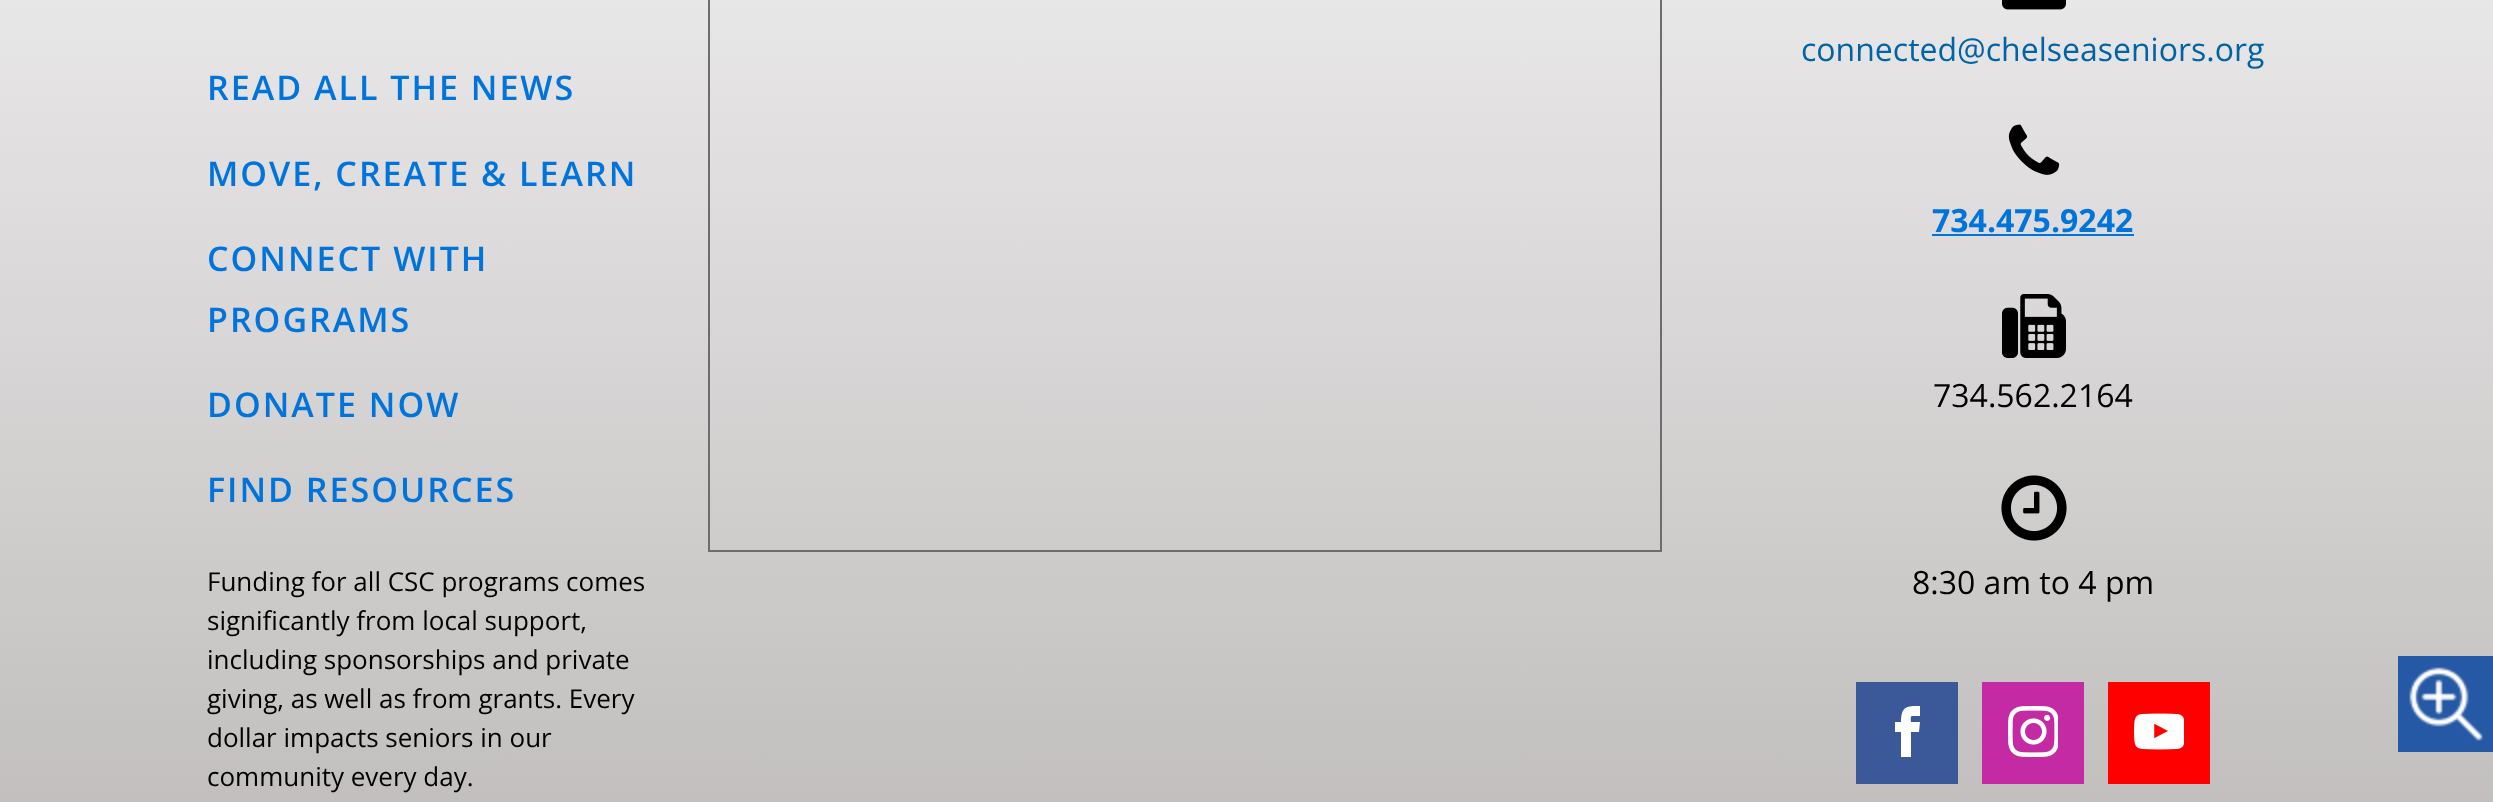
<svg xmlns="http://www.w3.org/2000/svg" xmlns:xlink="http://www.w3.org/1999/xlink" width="2493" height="802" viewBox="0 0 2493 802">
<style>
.cls-1{font:600 34px Open Sans;letter-spacing:2px;fill:#0074db}
.cls-2{font:26px Open Sans;fill:#000000}
.cls-3{font:32px Open Sans;fill:#0063a5}
.cls-4{font:bold 32px Open Sans;fill:#0074db}
.cls-5{font:32px Open Sans;fill:#000000}
</style>
<defs>
<linearGradient id="g1" gradientUnits="userSpaceOnUse" x1="1247" y1="-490" x2="1247" y2="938"><stop offset="0" stop-color="#ffffff"/><stop offset="1" stop-color="#bcb8b8"/></linearGradient>
</defs>
<rect width="100%" height="100%" fill="#ffffff"/>
<rect fill="url(#g1)" x="0" y="0" width="2493" height="802"/>
<rect fill="none" stroke="#6d6d6d" stroke-width="2" x="709" y="-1" width="952" height="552"/>
<image xlink:href="image0.png" x="2002" y="0" width="64" height="10"/>
<image xlink:href="image1.png" x="2008" y="124" width="52" height="51"/>
<rect fill="#0074db" x="1932" y="234" width="202" height="2"/>
<image xlink:href="image2.png" x="2002" y="294" width="64" height="64"/>
<image xlink:href="image3.png" x="2001" y="475" width="66" height="66"/>
<rect fill="#3b5998" x="1856" y="682" width="102" height="102"/>
<path fill="#ffffff" d="M1912 716H1920V706C1907 706 1901 706 1901 722H1895V732H1901V757H1911V732H1919L1920 722H1911C1911 721 1910 716 1912 716Z"/>
<rect fill="#c32aa3" x="1982" y="682" width="102" height="102"/>
<image xlink:href="image4.png" x="2008" y="706" width="50" height="51"/>
<rect fill="#ff0000" x="2108" y="682" width="102" height="102"/>
<image xlink:href="image5.png" x="2134" y="713" width="50" height="37"/>
<image xlink:href="image6.png" x="2398" y="656" width="95" height="96"/>
<text class="cls-1" x="207" y="100">READ ALL THE NEWS</text>
<text class="cls-1" x="207" y="186">MOVE, CREATE &amp; LEARN</text>
<text class="cls-1"><tspan x="207" y="271">CONNECT WITH</tspan><tspan x="207" y="332">PROGRAMS</tspan></text>
<text class="cls-1" x="207" y="417">DONATE NOW</text>
<text class="cls-1" x="207" y="502">FIND RESOURCES</text>
<text class="cls-2"><tspan x="207" y="591">Funding for all CSC programs comes</tspan><tspan x="207" y="630">significantly from local support,</tspan><tspan x="207" y="669">including sponsorships and private</tspan><tspan x="207" y="708">giving, as well as from grants. Every</tspan><tspan x="207" y="747">dollar impacts seniors in our</tspan><tspan x="207" y="786">community every day.</tspan></text>
<text class="cls-3" x="1801" y="61">connected@chelseaseniors.org</text>
<text class="cls-4" x="1932" y="232">734.475.9242</text>
<text class="cls-5" x="1933" y="407">734.562.2164</text>
<text class="cls-5" x="1912" y="594">8:30 am to 4 pm</text>
</svg>
